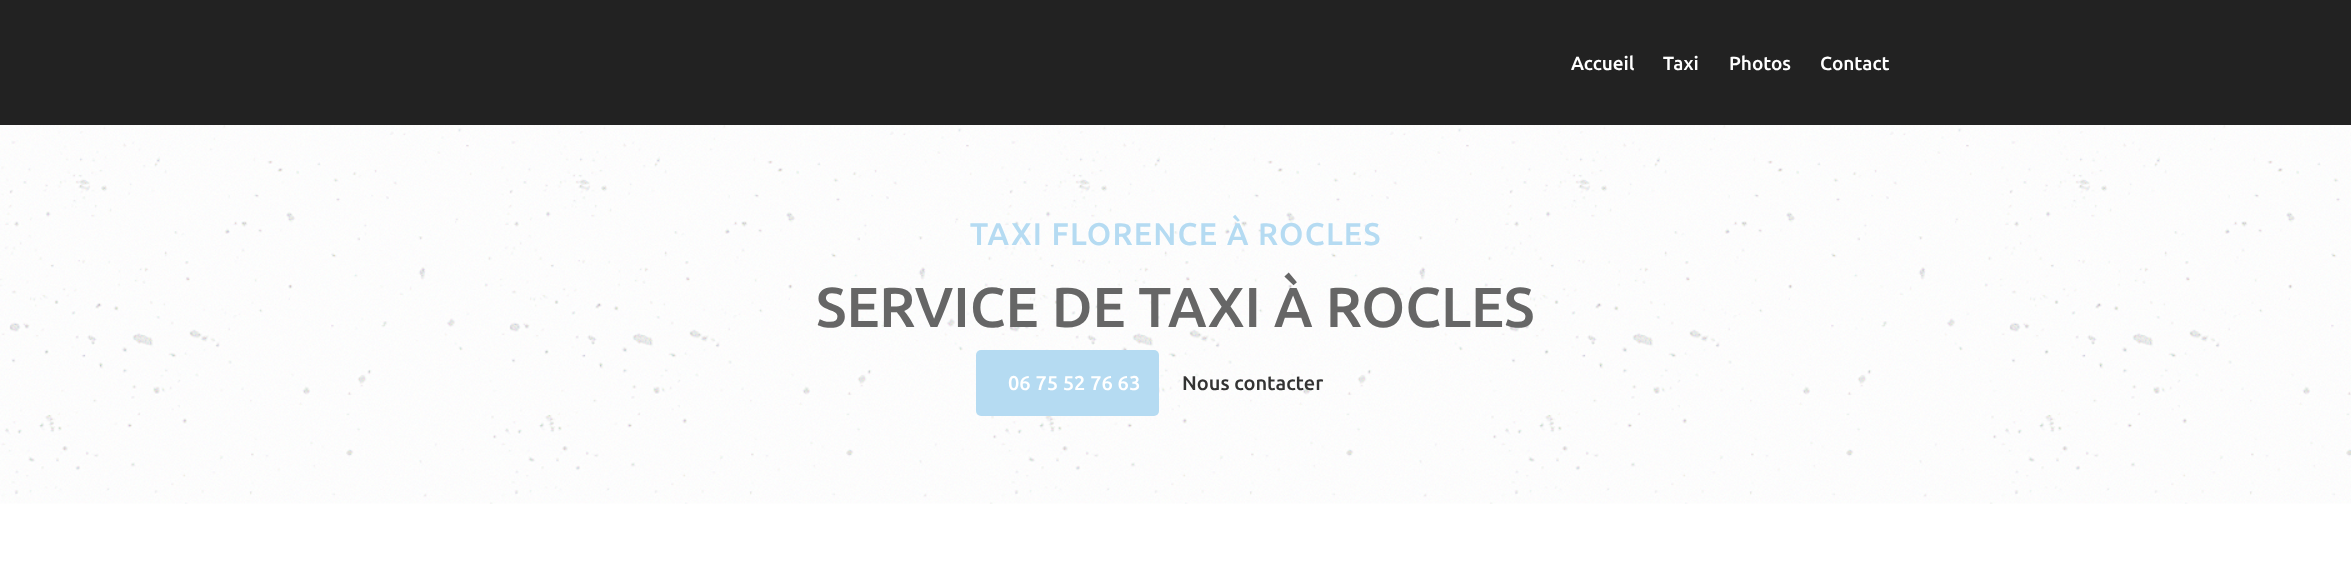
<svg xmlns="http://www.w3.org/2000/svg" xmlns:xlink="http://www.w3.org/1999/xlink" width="2351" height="564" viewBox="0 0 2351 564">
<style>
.cls-1{font:500 19px Ubuntu;fill:#ffffff}
.cls-2{font:500 31.25px Ubuntu;letter-spacing:1.25px;fill:#b5dbf2}
.cls-3{font:500 56.25px Ubuntu;fill:#666666}
.cls-4{font:500 20px Ubuntu;fill:#ffffff}
.cls-5{font:500 20px Ubuntu;fill:#333333}
</style>
<rect width="100%" height="100%" fill="#ffffff"/>
<rect fill="#222222" x="0" y="0" width="2351" height="125"/>
<image xlink:href="image0.png" x="0" y="125" width="2351" height="379"/>
<rect fill="#b5dbf2" x="976" y="350" width="183" height="66" rx="5"/>
<text class="cls-1" x="1571" y="70">Accueil</text>
<text class="cls-1" x="1663" y="70">Taxi</text>
<text class="cls-1" x="1729" y="70">Photos</text>
<text class="cls-1" x="1820" y="70">Contact</text>
<text class="cls-2" x="970" y="245">TAXI FLORENCE À ROCLES</text>
<text class="cls-3" x="816" y="327">SERVICE DE TAXI À ROCLES</text>
<text class="cls-4" x="1008" y="390">06 75 52 76 63</text>
<text class="cls-5" x="1182" y="390">Nous contacter</text>
</svg>
